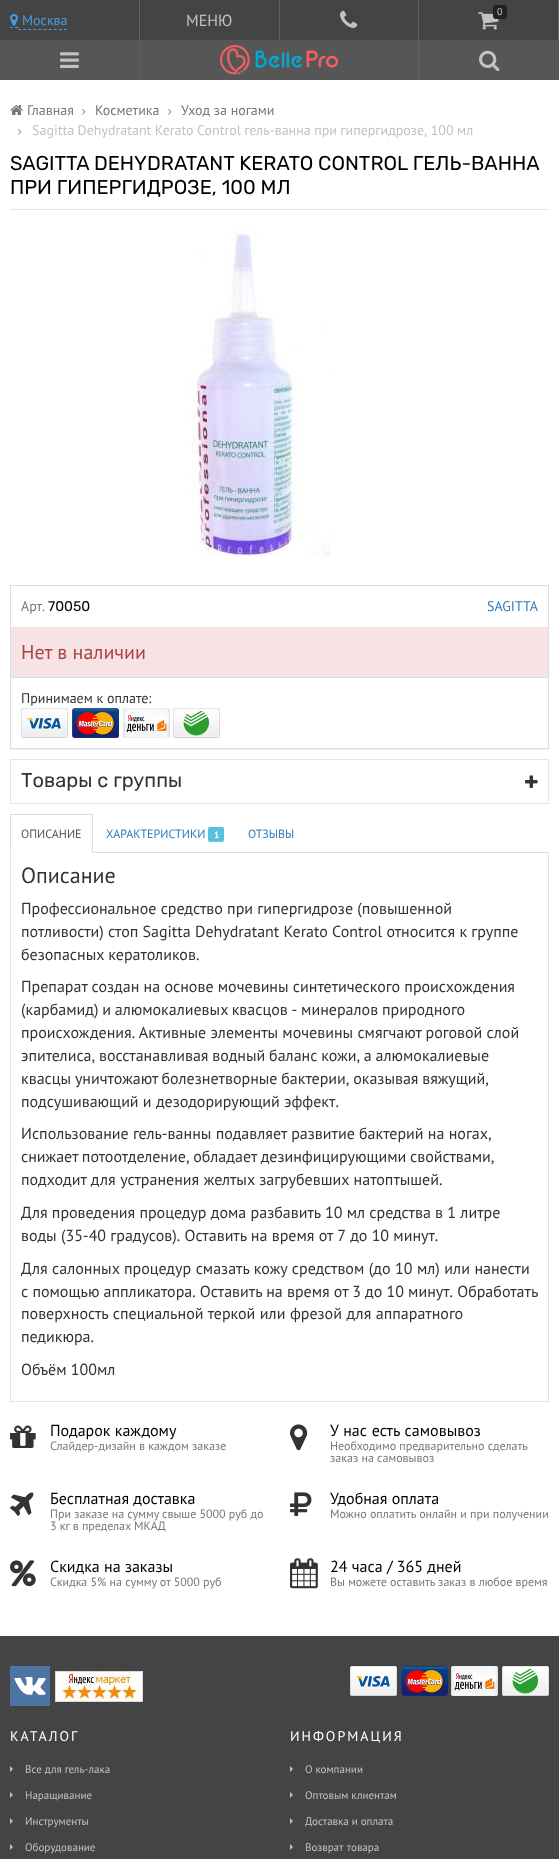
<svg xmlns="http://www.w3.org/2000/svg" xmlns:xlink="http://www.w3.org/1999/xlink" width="559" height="1859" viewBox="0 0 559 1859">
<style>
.cls-1{font:10px PT Sans;fill:#c2c2c2}
.cls-2{font:14px PT Sans;fill:#469be4}
.cls-3{font:16px PT Sans;fill:#c2c2c2}
.cls-4{font:14px PT Sans;fill:#777777}
.cls-5{font:14px PT Sans;fill:#c2c2c2}
.cls-6{font:20px Rubik;fill:#000000}
.cls-7{font:14px Rubik;fill:#000000}
.cls-8{font:14px PT Sans;fill:#337ab7}
.cls-9{font:20px PT Sans;fill:#a94442}
.cls-10{font:14px PT Sans;fill:#333333}
.cls-11{font:20px Rubik;fill:#333333}
.cls-12{font:12px PT Sans;fill:#555555}
.cls-13{font:12px PT Sans;fill:#337ab7}
.cls-14{font:bold 9px PT Sans;fill:#ffffff}
.cls-15{font:22px PT Sans;fill:#333333}
.cls-16{font:16px PT Sans;fill:#333333}
.cls-17{font:16px PT Sans;fill:#000000}
.cls-18{font:12px PT Sans;fill:#777777}
.cls-19{font:14px PT Sans;letter-spacing:2px;fill:#ffffff}
.cls-20{font:11px PT Sans;fill:#c2c2c2}
</style>
<defs>
<clipPath id="clip1"><rect x="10" y="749" width="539" height="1"/></clipPath>
</defs>
<rect width="100%" height="100%" fill="#ffffff"/>
<rect fill="#444444" x="0" y="0" width="558" height="40"/>
<rect fill="#616161" x="418" y="0" width="1" height="40"/>
<image xlink:href="image0.png" x="340" y="10" width="18" height="18"/>
<rect fill="#616161" x="558" y="0" width="1" height="40"/>
<image xlink:href="image1.png" x="478" y="12" width="21" height="18"/>
<rect fill="#222222" x="493" y="5" width="14" height="14" rx="3"/>
<rect fill="#616161" x="139" y="0" width="1" height="40"/>
<path fill="none" stroke="#469be4" d="M10 27.5H13M15 27.5H18"/>
<path fill="none" stroke="#469be4" stroke-dasharray="3 2.11" d="M18 29.5H67"/>
<image xlink:href="image2.png" x="10" y="14" width="8" height="12"/>
<rect fill="#616161" x="279" y="0" width="1" height="40"/>
<rect fill="#565656" x="0" y="40" width="559" height="40"/>
<rect fill="#616161" x="139" y="40" width="1" height="40"/>
<image xlink:href="image3.png" x="60" y="52" width="19" height="16"/>
<rect fill="#616161" x="418" y="40" width="1" height="40"/>
<image xlink:href="image4.png" x="220" y="45" width="118" height="30"/>
<image xlink:href="image5.png" x="479" y="50" width="21" height="22"/>
<image xlink:href="image6.png" x="10" y="105" width="13" height="10"/>
<image xlink:href="image7.png" x="82" y="109" width="4" height="6"/>
<image xlink:href="image7.png" x="168" y="109" width="4" height="6"/>
<image xlink:href="image7.png" x="18" y="129" width="4" height="6"/>
<rect fill="#e5e5e5" x="10" y="209" width="539" height="1"/>
<image xlink:href="image8.png" x="191" y="231" width="139" height="325"/>
<g clip-path="url(#clip1)">
<rect fill="#000000" fill-opacity="0.05" filter="blur(0.5px)" x="10" y="586" width="539" height="164"/>
</g>
<rect fill="none" stroke="#dddddd" x="10.5" y="585.5" width="538" height="163"/>
<rect fill="#f7e3e3" x="11" y="628" width="537" height="49"/>
<rect fill="#f2dede" x="11" y="627" width="537" height="1"/>
<rect fill="#dddddd" x="11" y="677" width="537" height="1"/>
<image xlink:href="image9.png" x="21" y="708" width="47" height="30"/>
<image xlink:href="image10.png" x="72" y="708" width="47" height="30"/>
<image xlink:href="image11.png" x="123" y="708" width="47" height="30"/>
<image xlink:href="image12.png" x="173" y="708" width="47" height="30"/>
<rect fill="none" stroke="#e5e5e5" x="10.5" y="759.5" width="538" height="44"/>
<image xlink:href="image13.png" x="525" y="775" width="13" height="13"/>
<rect fill="#dddddd" x="93" y="852" width="456" height="1"/>
<rect fill="#dddddd" x="10" y="814" width="83" height="1"/>
<path fill="#dddddd" d="M93 814V853L92 852V815Z"/>
<path fill="#dddddd" d="M10 853V814L11 815V852Z"/>
<rect fill="#5bc0de" x="208" y="827" width="16" height="15" rx="2"/>
<rect fill="#e4e4e4" x="548" y="853" width="1" height="549"/>
<rect fill="#e4e4e4" x="10" y="1401" width="539" height="1"/>
<rect fill="#e4e4e4" x="10" y="853" width="1" height="549"/>
<image xlink:href="image14.png" x="10" y="1425" width="26" height="23"/>
<image xlink:href="image15.png" x="290" y="1424" width="18" height="27"/>
<image xlink:href="image16.png" x="10" y="1492" width="24" height="24"/>
<image xlink:href="image17.png" x="290" y="1492" width="22" height="24"/>
<image xlink:href="image18.png" x="10" y="1560" width="26" height="27"/>
<image xlink:href="image19.png" x="290" y="1558" width="28" height="31"/>
<rect fill="#444444" x="0" y="1636" width="559" height="223"/>
<image xlink:href="image20.png" x="10" y="1666" width="40" height="40"/>
<image xlink:href="image21.png" x="55" y="1671" width="88" height="31"/>
<image xlink:href="image22.png" x="350" y="1666" width="47" height="30"/>
<image xlink:href="image23.png" x="401" y="1666" width="47" height="30"/>
<image xlink:href="image24.png" x="451" y="1666" width="47" height="30"/>
<image xlink:href="image25.png" x="502" y="1666" width="47" height="30"/>
<path fill="#c2c2c2" d="M10 1772V1766L13 1769Z"/>
<path fill="#c2c2c2" d="M10 1798V1792L13 1795Z"/>
<path fill="#c2c2c2" d="M10 1824V1818L13 1821Z"/>
<path fill="#c2c2c2" d="M10 1850V1844L13 1847Z"/>
<path fill="#c2c2c2" d="M290 1772V1766L293 1769Z"/>
<path fill="#c2c2c2" d="M290 1798V1792L293 1795Z"/>
<path fill="#c2c2c2" d="M290 1824V1818L293 1821Z"/>
<path fill="#c2c2c2" d="M290 1850V1844L293 1847Z"/>
<text class="cls-1" x="497" y="15">0</text>
<text class="cls-2" x="22" y="25">Москва</text>
<text class="cls-3" x="186" y="26">МЕНЮ</text>
<text class="cls-4" x="27" y="115">Главная</text>
<text class="cls-4" x="95" y="115">Косметика</text>
<text class="cls-4" x="181" y="115">Уход за ногами</text>
<text class="cls-5" x="32" y="135" word-spacing="-0.25">Sagitta Dehydratant Kerato Control гель-ванна при гипергидрозе, 100 мл</text>
<text class="cls-6"><tspan x="10" y="170">SAGITTA DEHYDRATANT KERATO CONTROL ГЕЛЬ-ВАННА</tspan><tspan x="10" y="194">ПРИ ГИПЕРГИДРОЗЕ, 100 МЛ</tspan></text>
<text class="cls-4" x="21" y="611">Арт.</text>
<text class="cls-7" x="48" y="611">70050</text>
<text class="cls-8" x="487" y="611">SAGITTA</text>
<text class="cls-9" x="21" y="659">Нет в наличии</text>
<text class="cls-10" x="21" y="703">Принимаем к оплате:</text>
<text class="cls-11" x="21" y="787">Товары с группы</text>
<text class="cls-12" x="21" y="838">ОПИСАНИЕ</text>
<text class="cls-13" x="106" y="838">ХАРАКТЕРИСТИКИ</text>
<text class="cls-14" x="214" y="838">1</text>
<text class="cls-13" x="248" y="838">ОТЗЫВЫ</text>
<text class="cls-15" x="21" y="883">Описание</text>
<text class="cls-16"><tspan x="21" y="914">Профессиональное средство при гипергидрозе (повышенной</tspan><tspan x="21" y="937">потливости) стоп Sagitta Dehydratant Kerato Control относится к группе</tspan><tspan x="21" y="960">безопасных кератоликов</tspan></text>
<text class="cls-16" x="196" y="960">.</text>
<text class="cls-16"><tspan x="21" y="992">Препарат создан на основе мочевины синтетического происхождения</tspan><tspan x="21" y="1015" word-spacing="-0.5">(карбамид) и алюмокалиевых квасцов - минералов природного</tspan><tspan x="21" y="1038">происхождения. Активные элементы мочевины смягчают роговой слой</tspan><tspan x="21" y="1061" word-spacing="-0.5">эпителиса, восстанавливая водный баланс кожи, а алюмокалиевые</tspan><tspan x="21" y="1084" word-spacing="-0.5">квасцы уничтожают болезнетворные бактерии, оказывая вяжущий,</tspan><tspan x="21" y="1107">подсушивающий и дезодорирующий эффект.</tspan></text>
<text class="cls-16"><tspan x="21" y="1139">Использование гель-ванны подавляет развитие бактерий на ногах,</tspan><tspan x="21" y="1162" word-spacing="-0.5">снижает потоотделение, обладает дезинфицирующими свойствами,</tspan><tspan x="21" y="1185" word-spacing="0.25">подходит для устранения желтых загрубевших натоптышей.</tspan></text>
<text class="cls-16"><tspan x="21" y="1218">Для проведения процедур дома разбавить 10 мл средства в 1 литре</tspan><tspan x="21" y="1241">воды (35-40 градусов). Оставить на время от 7 до 10 минут.</tspan></text>
<text class="cls-16"><tspan x="21" y="1274" word-spacing="0.25">Для салонных процедур смазать кожу средством (до 10 мл) или нанести</tspan><tspan x="21" y="1297" word-spacing="-0.1">с помощью аппликатора. Оставить на время от 3 до 10 минут. Обработать</tspan><tspan x="21" y="1319" word-spacing="0.25">поверхность специальной теркой или фрезой для аппаратного</tspan><tspan x="21" y="1342">педикюра.</tspan></text>
<text class="cls-16" x="21" y="1375">Объём 100мл</text>
<text class="cls-17" x="50" y="1436">Подарок каждому</text>
<text class="cls-18" x="50" y="1450">Слайдер-дизайн в каждом заказе</text>
<text class="cls-17" x="330" y="1436" word-spacing="0.5">У нас есть самовывоз</text>
<text class="cls-18"><tspan x="330" y="1450">Необходимо предварительно сделать</tspan><tspan x="330" y="1462">заказ на самовывоз</tspan></text>
<text class="cls-17" x="50" y="1504">Бесплатная доставка</text>
<text class="cls-18"><tspan x="50" y="1518">При заказе на сумму свыше 5000 руб до</tspan><tspan x="50" y="1530">3 кг в пределах МКАД</tspan></text>
<text class="cls-17" x="330" y="1504">Удобная оплата</text>
<text class="cls-18" x="330" y="1518">Можно оплатить онлайн и при получении</text>
<text class="cls-17" x="50" y="1572">Скидка на заказы</text>
<text class="cls-18" x="50" y="1586">Скидка 5% на сумму от 5000 руб</text>
<text class="cls-17" x="330" y="1572">24 часа / 365 дней</text>
<text class="cls-18" x="330" y="1586">Вы можете оставить заказ в любое время</text>
<text class="cls-19" x="10" y="1741">КАТАЛОГ</text>
<text class="cls-20" x="25" y="1773">Все для гель-лака</text>
<text class="cls-20" x="25" y="1799">Наращивание</text>
<text class="cls-20" x="25" y="1825">Инструменты</text>
<text class="cls-20" x="25" y="1851">Оборудование</text>
<text class="cls-19" x="290" y="1741">ИНФОРМАЦИЯ</text>
<text class="cls-20" x="305" y="1773">О компании</text>
<text class="cls-20" x="305" y="1799">Оптовым клиентам</text>
<text class="cls-20" x="305" y="1825">Доставка и оплата</text>
<text class="cls-20" x="305" y="1851" word-spacing="1">Возврат товара</text>
</svg>
